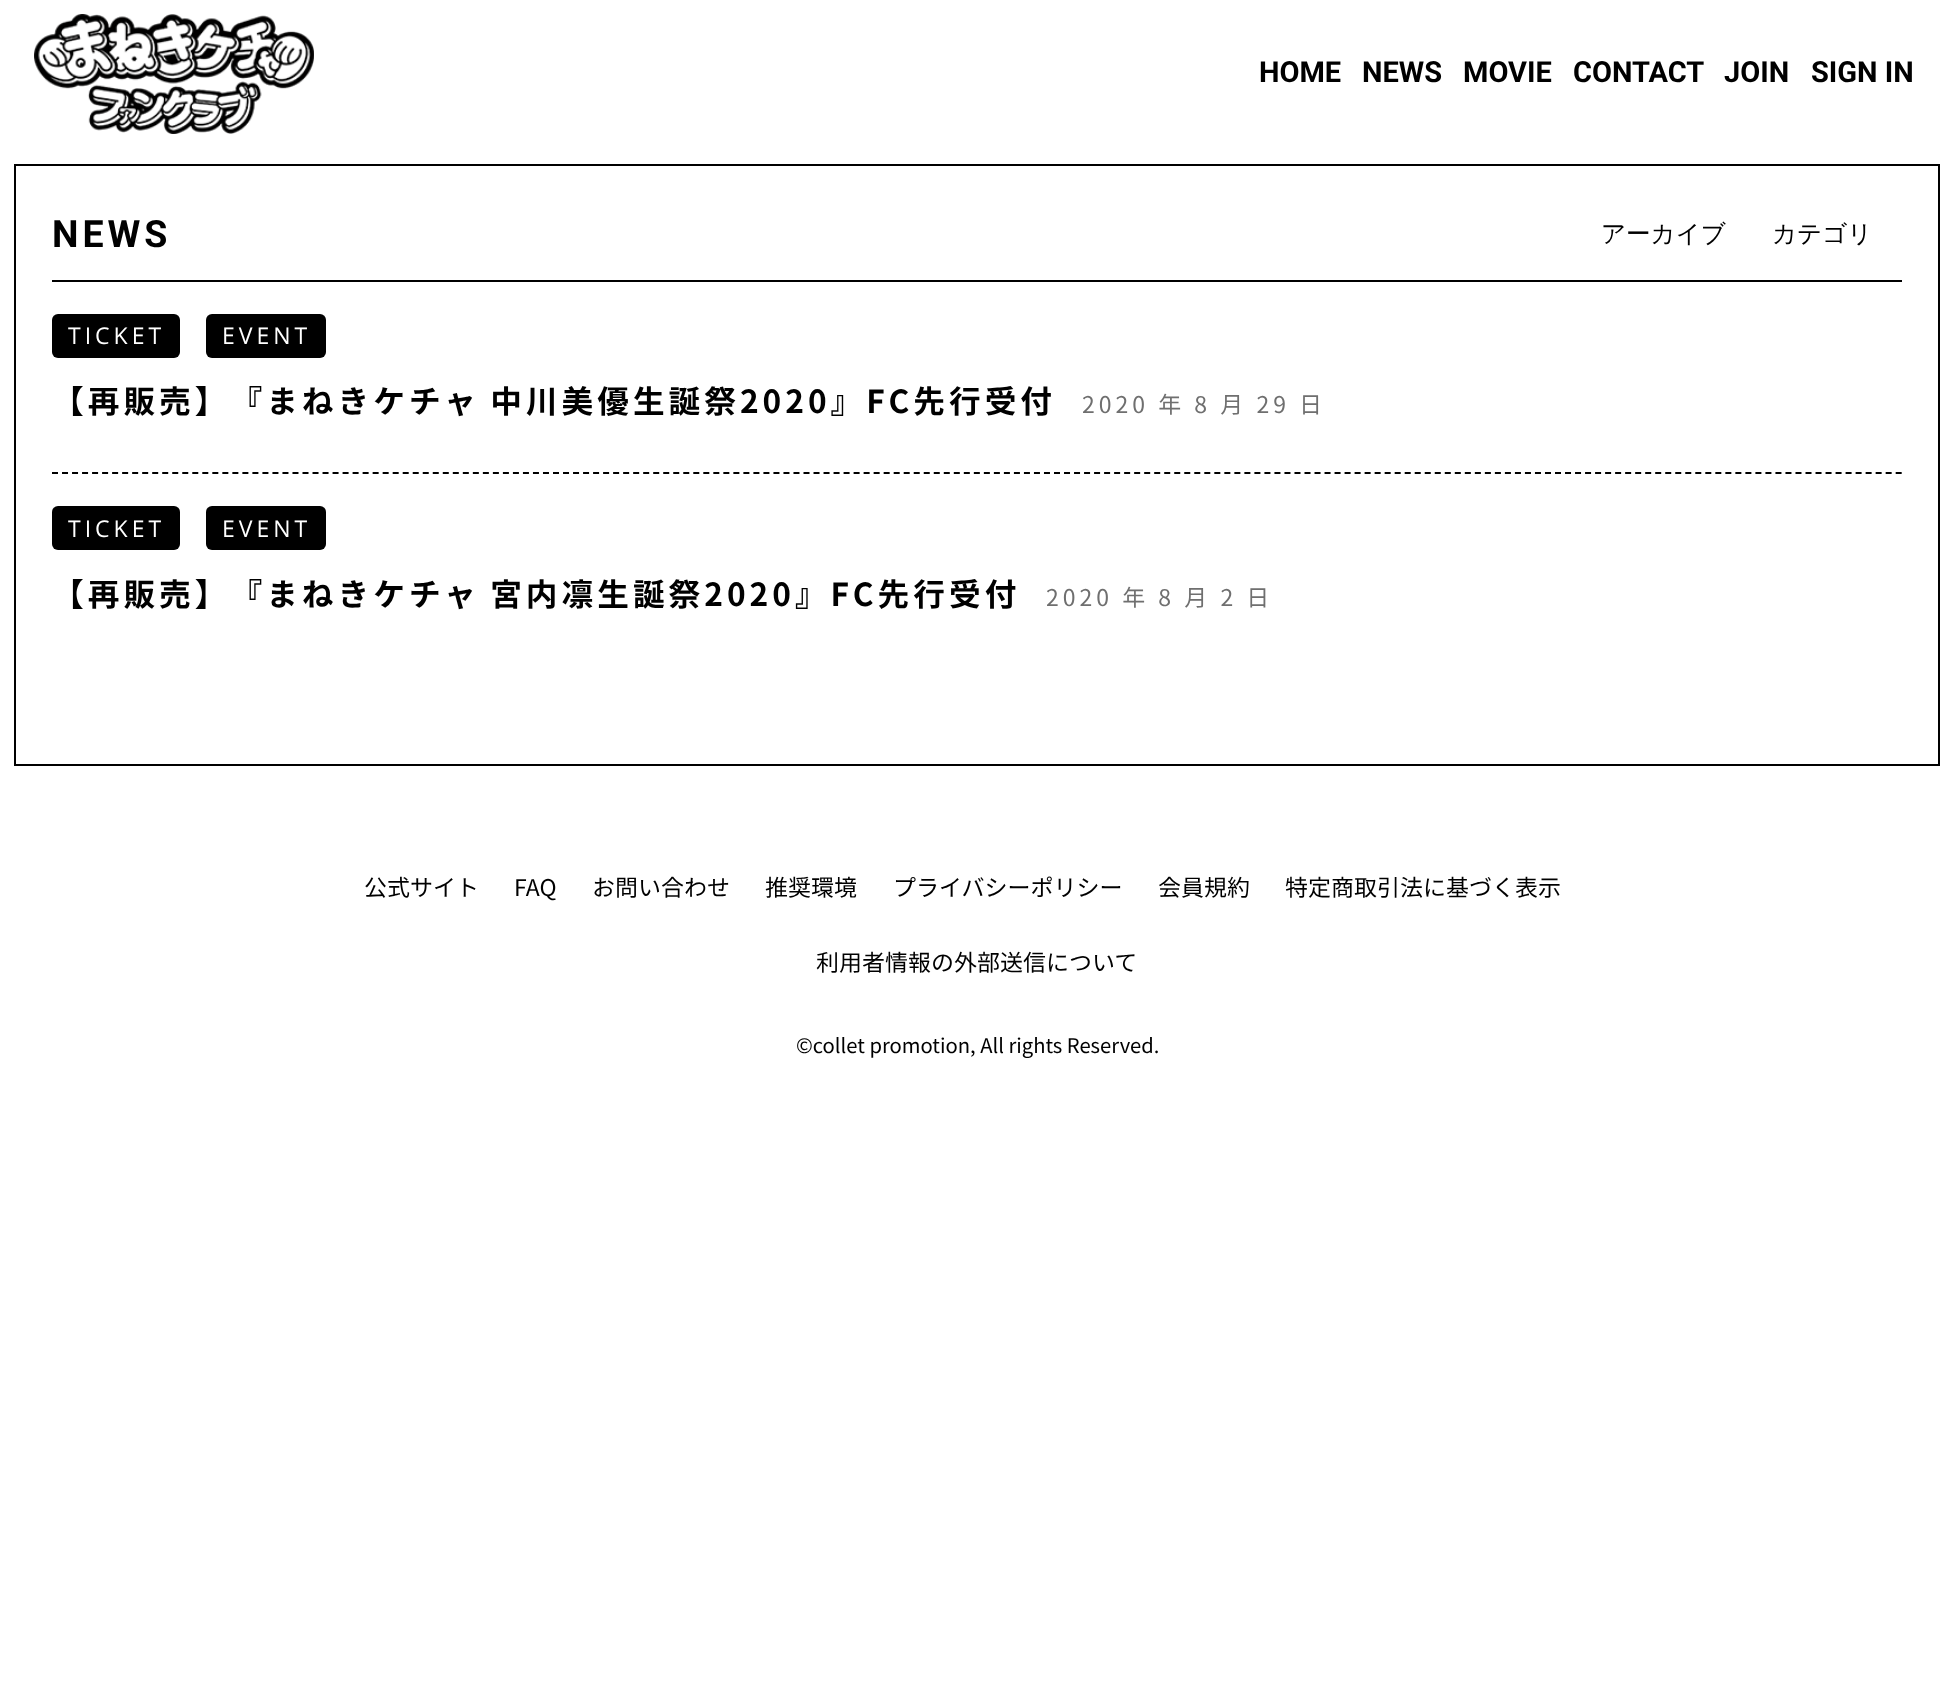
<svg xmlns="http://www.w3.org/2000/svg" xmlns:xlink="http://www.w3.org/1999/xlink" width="1953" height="1701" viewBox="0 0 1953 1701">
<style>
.cls-1{font:bold 29px Roboto;fill:#000000}
.cls-2{font:bold 37.5px Roboto;letter-spacing:4px;fill:#000000}
.cls-3{font:500 24.5px WenQuanYi Zen Hei;fill:#000000}
.cls-4{font:23px Open Sans;letter-spacing:4px;fill:#ffffff}
.cls-5{font:bold 31.7px Noto Sans JP;letter-spacing:4px;fill:#000000}
.cls-6{font:23px Noto Sans JP;letter-spacing:4px;fill:#6f6f6f}
.cls-7{font:23px Noto Sans JP;fill:#000000}
.cls-8{font:20.2px Noto Sans JP;fill:#000000}
</style>
<rect width="100%" height="100%" fill="#ffffff"/>
<image xlink:href="image0.png" x="34" y="14" width="280" height="120"/>
<rect fill="none" stroke="#000000" stroke-width="2" x="15" y="165" width="1924" height="600"/>
<rect fill="#000000" x="52" y="280" width="1850" height="2"/>
<path fill="none" stroke="#000000" stroke-width="2" stroke-dasharray="6 4.02" d="M52 473H1902"/>
<rect fill="#000000" x="52" y="314" width="128" height="44" rx="6"/>
<rect fill="#000000" x="206" y="314" width="120" height="44" rx="6"/>
<rect fill="#000000" x="52" y="506" width="128" height="44" rx="6"/>
<rect fill="#000000" x="206" y="506" width="120" height="44" rx="6"/>
<text class="cls-1" x="1259" y="82">HOME</text>
<text class="cls-1" x="1362" y="82">NEWS</text>
<text class="cls-1" x="1463" y="82">MOVIE</text>
<text class="cls-1" x="1573" y="82">CONTACT</text>
<text class="cls-1" x="1724" y="82">JOIN</text>
<text class="cls-1" x="1811" y="82">SIGN IN</text>
<text class="cls-2" x="52" y="247">NEWS</text>
<text class="cls-3" x="1601" y="242">アーカイブ</text>
<text class="cls-3" x="1772" y="242">カテゴリ</text>
<text class="cls-4" x="68" y="344">TICKET</text>
<text class="cls-4" x="222" y="344">EVENT</text>
<text class="cls-5" x="52" y="413" word-spacing="-1">【再販売】『まねきケチャ 中川美優生誕祭2020』FC先行受付</text>
<text class="cls-6" x="1082" y="413">2020 年 8 月 29 日</text>
<text class="cls-4" x="68" y="537">TICKET</text>
<text class="cls-4" x="222" y="537">EVENT</text>
<text class="cls-5" x="52" y="606" word-spacing="-1">【再販売】『まねきケチャ 宮内凛生誕祭2020』FC先行受付</text>
<text class="cls-6" x="1046" y="606">2020 年 8 月 2 日</text>
<text class="cls-7" x="364" y="896">公式サイト</text>
<text class="cls-7" x="514" y="896">FAQ</text>
<text class="cls-7" x="592" y="896">お問い合わせ</text>
<text class="cls-7" x="765" y="896">推奨環境</text>
<text class="cls-7" x="893" y="896">プライバシーポリシー</text>
<text class="cls-7" x="1158" y="896">会員規約</text>
<text class="cls-7" x="1285" y="896">特定商取引法に基づく表示</text>
<text class="cls-7" x="816" y="971">利用者情報の外部送信について</text>
<text class="cls-8" x="796" y="1053">©collet promotion, All rights Reserved.</text>
</svg>
